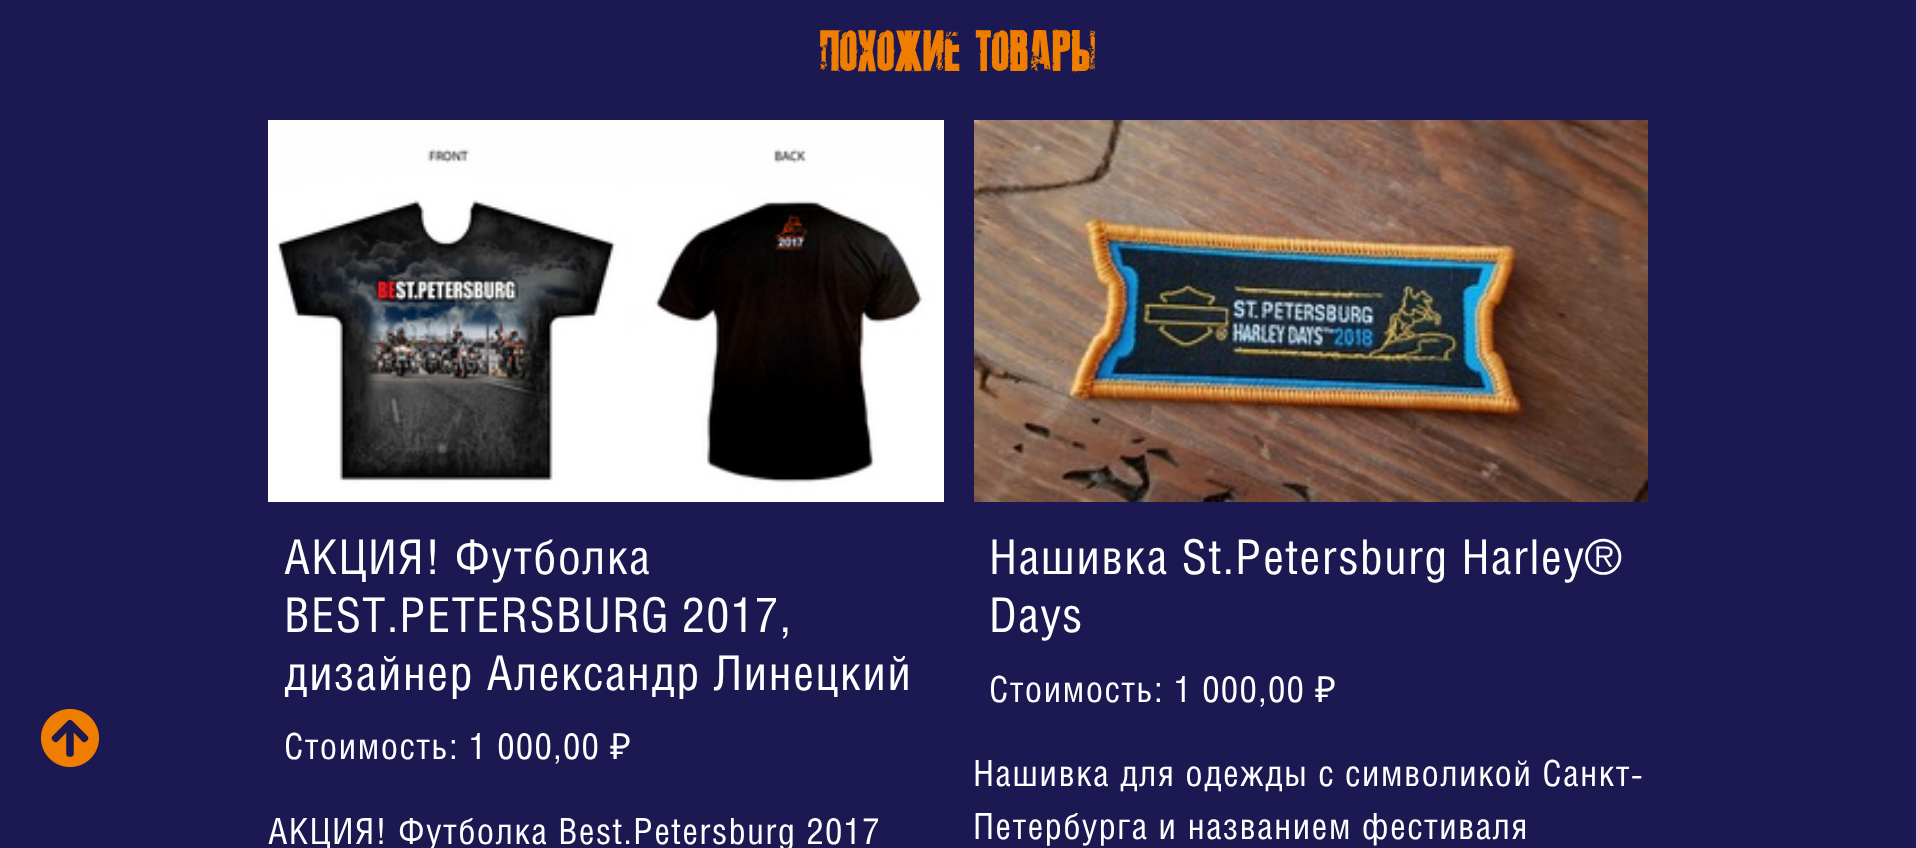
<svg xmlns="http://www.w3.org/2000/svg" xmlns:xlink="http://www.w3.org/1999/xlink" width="1916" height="848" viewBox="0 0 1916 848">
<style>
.cls-1{font:bold 56px 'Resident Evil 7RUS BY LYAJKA';letter-spacing:1.3px;fill:#ef7d00}
.cls-2{font:48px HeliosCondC;letter-spacing:1.3px;fill:#ffffff}
.cls-3{font:36px HeliosCondC;letter-spacing:1.3px;fill:#ffffff}
.cls-4{font:36px Noto Sans;letter-spacing:1.3px;fill:#ffffff}
</style>
<rect width="100%" height="100%" fill="#1b1852"/>
<image xlink:href="image0.png" x="40" y="708" width="60" height="60"/>
<image xlink:href="image1.png" x="268" y="120" width="676" height="382"/>
<image xlink:href="image2.png" x="974" y="120" width="674" height="382"/>
<text class="cls-1" x="819" y="71">ПОХОЖИЕ ТОВАРЫ</text>
<text class="cls-2"><tspan x="284" y="574">АКЦИЯ! Футболка</tspan><tspan x="284" y="632">BEST.PETERSBURG 2017,</tspan><tspan x="284" y="690">дизайнер Александр Линецкий</tspan></text>
<text class="cls-3" x="284" y="759">Стоимость: 1 000,00</text>
<text class="cls-4" x="610" y="759">₽</text>
<text class="cls-3" x="268" y="844">АКЦИЯ! Футболка Best.Petersburg 2017</text>
<text class="cls-2"><tspan x="989" y="574">Нашивка St.Petersburg Harley®</tspan><tspan x="989" y="632">Days</tspan></text>
<text class="cls-3" x="989" y="702">Стоимость: 1 000,00</text>
<text class="cls-4" x="1315" y="702">₽</text>
<text class="cls-3"><tspan x="973" y="786">Нашивка для одежды с символикой Санкт-</tspan><tspan x="973" y="839">Петербурга и названием фестиваля</tspan></text>
</svg>
